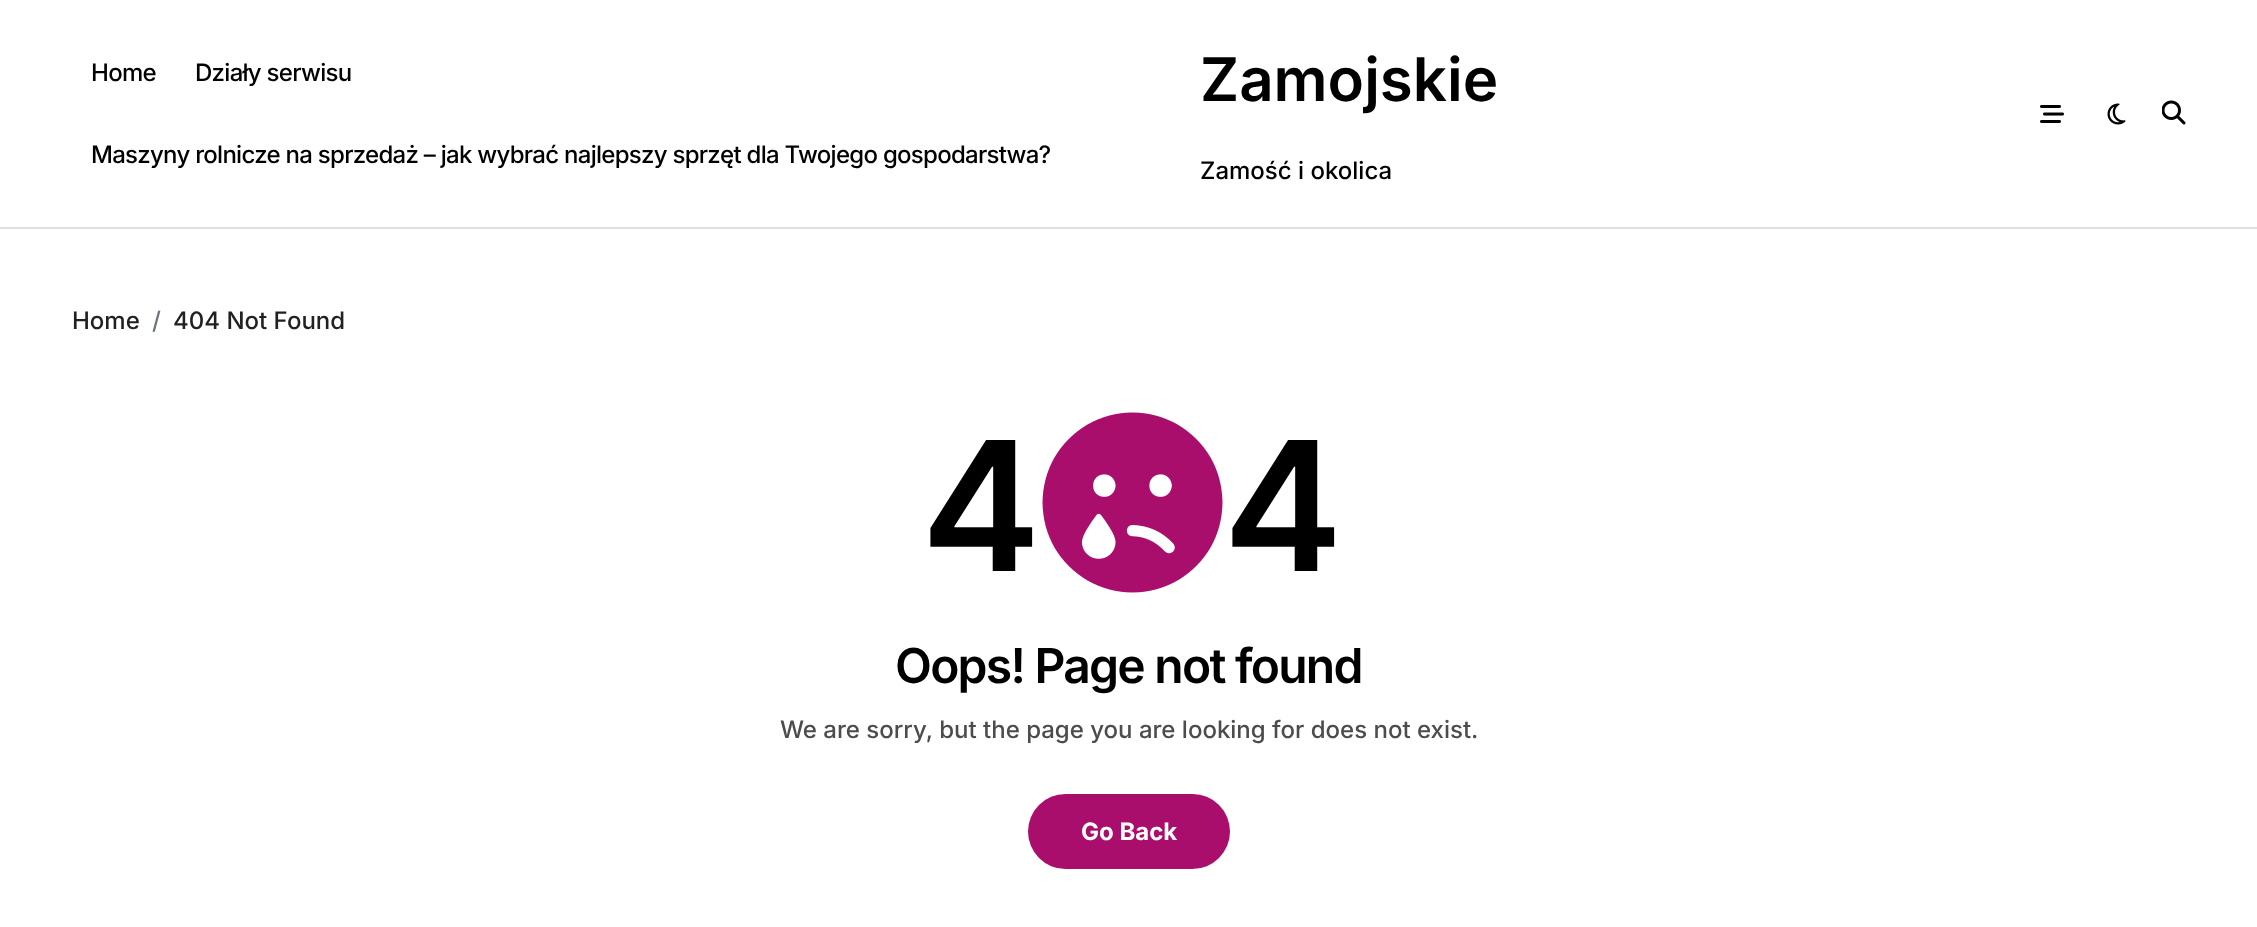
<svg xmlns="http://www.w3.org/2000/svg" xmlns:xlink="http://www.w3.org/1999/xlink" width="2257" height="927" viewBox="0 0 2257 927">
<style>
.cls-1{font:500 24px Inter;letter-spacing:-0.72px;fill:#000000}
.cls-2{font:600 60px Inter;fill:#000000}
.cls-3{font:500 24px Inter;fill:#000000}
.cls-4{font:500 24px Inter;fill:#212121}
.cls-5{font:500 24px Inter;fill:#6c757d}
.cls-6{font:600 180px Inter;letter-spacing:-6px;fill:#000000}
.cls-7{font:600 48px Inter;letter-spacing:-1.75px;fill:#000000}
.cls-8{font:500 24px Inter;fill:#4c4c4c}
.cls-9{font:bold 24px Inter;fill:#ffffff}
</style>
<rect width="100%" height="100%" fill="#ffffff"/>
<rect fill="#e0e0e0" x="0" y="227" width="2257" height="2"/>
<image xlink:href="image0.png" x="2040" y="105" width="24" height="18"/>
<image xlink:href="image1.png" x="2107" y="103" width="19" height="22"/>
<image xlink:href="image2.png" x="2162" y="100" width="24" height="25"/>
<image xlink:href="image3.png" x="1042" y="412" width="181" height="181"/>
<rect fill="#a90e6d" x="1028" y="794" width="202" height="75" rx="37.5"/>
<text class="cls-1" x="91" y="81">Home</text>
<text class="cls-1" x="195" y="81">Działy serwisu</text>
<text class="cls-1" x="91" y="163">Maszyny rolnicze na sprzedaż – jak wybrać najlepszy sprzęt dla Twojego gospodarstwa?</text>
<text class="cls-2" x="1200" y="101">Zamojskie</text>
<text class="cls-3" x="1200" y="179">Zamość i okolica</text>
<text class="cls-4" x="72" y="329">Home</text>
<text class="cls-5" x="152" y="329">/</text>
<text class="cls-4" x="173" y="329">404 Not Found</text>
<text class="cls-6" x="921" y="571">4</text>
<text class="cls-6" x="1223" y="571">4</text>
<text class="cls-7" x="895" y="683">Oops! Page not found</text>
<text class="cls-8" x="780" y="738">We are sorry, but the page you are looking for does not exist.</text>
<text class="cls-9" x="1081" y="840">Go Back</text>
</svg>
